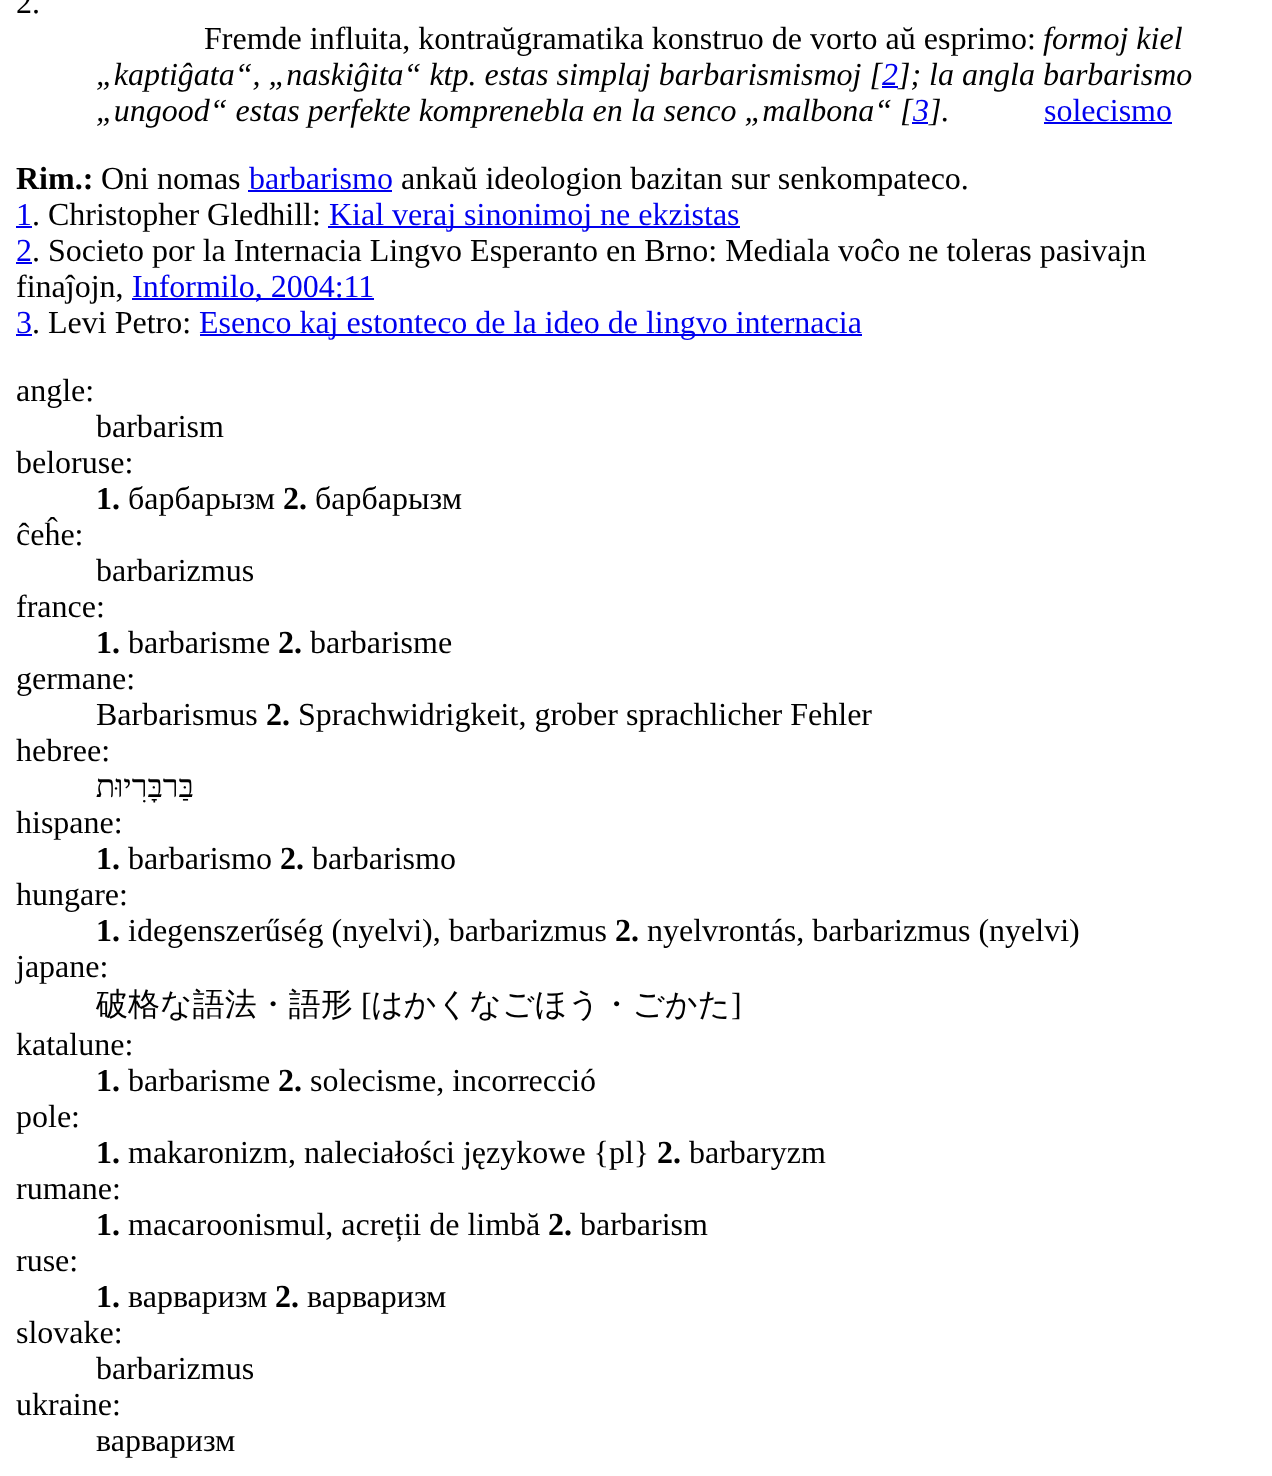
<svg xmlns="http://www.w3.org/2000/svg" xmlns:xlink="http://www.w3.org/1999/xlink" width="1272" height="1476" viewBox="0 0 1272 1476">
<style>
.cls-1{font:32px Liberation Serif;fill:#000000}
.cls-2{font:italic 32px Liberation Serif;fill:#000000}
.cls-3{font:italic 32px Liberation Serif;fill:#0000ee}
.cls-4{font:32px Liberation Serif;fill:#0000ee}
.cls-5{font:bold 32px Liberation Serif;fill:#000000}
.cls-6{font:32px Liberation Serif;direction:rtl;fill:#000000}
.cls-7{font:500 32px WenQuanYi Zen Hei;fill:#000000}
</style>
<rect width="100%" height="100%" fill="#ffffff"/>
<rect fill="#0000ee" x="1044" y="122" width="128" height="2"/>
<rect fill="#0000ee" x="248" y="190" width="144" height="2"/>
<rect fill="#0000ee" x="16" y="226" width="16" height="2"/>
<rect fill="#0000ee" x="328" y="226" width="412" height="2"/>
<rect fill="#0000ee" x="16" y="262" width="16" height="2"/>
<rect fill="#0000ee" x="132" y="298" width="242" height="2"/>
<rect fill="#0000ee" x="16" y="334" width="16" height="2"/>
<rect fill="#0000ee" x="200" y="334" width="662" height="2"/>
<text class="cls-1" x="16" y="13">2.</text>
<text class="cls-1" x="204" y="49">Fremde influita, kontraŭgramatika konstruo de vorto aŭ esprimo:</text>
<text class="cls-2" x="1043" y="49">formoj kiel</text>
<text class="cls-2" x="96" y="85">„kaptiĝata“, „naskiĝita“ ktp. estas simplaj barbarismismoj [</text>
<rect fill="#0000ee" x="882" y="86" width="16" height="2"/>
<text class="cls-3" x="882" y="85">2</text>
<text class="cls-2" x="898" y="85">]; la angla barbarismo</text>
<text class="cls-2" x="96" y="121">„ungood“ estas perfekte komprenebla en la senco „malbona“ [</text>
<rect fill="#0000ee" x="912" y="122" width="16" height="2"/>
<text class="cls-3" x="913" y="121">3</text>
<text class="cls-2" x="929" y="121">].</text>
<text class="cls-4" x="1044" y="121">solecismo</text>
<text class="cls-5" x="16" y="189">Rim.:</text>
<text class="cls-1" x="101" y="189">Oni nomas</text>
<text class="cls-4" x="249" y="189">barbarismo</text>
<text class="cls-1" x="401" y="189">ankaŭ ideologion bazitan sur senkompateco.</text>
<text class="cls-4" x="16" y="225">1</text>
<text class="cls-1" x="32" y="225">. Christopher Gledhill:</text>
<text class="cls-4" x="329" y="225">Kial veraj sinonimoj ne ekzistas</text>
<text class="cls-4" x="16" y="261">2</text>
<text class="cls-1" x="32" y="261">. Societo por la Internacia Lingvo Esperanto en Brno: Mediala voĉo ne toleras pasivajn</text>
<text class="cls-1" x="16" y="297">finaĵojn,</text>
<text class="cls-4" x="132" y="297">Informilo, 2004:11</text>
<text class="cls-4" x="16" y="333">3</text>
<text class="cls-1" x="32" y="333">. Levi Petro:</text>
<text class="cls-4" x="199" y="333">Esenco kaj estonteco de la ideo de lingvo internacia</text>
<text class="cls-1" x="16" y="401">angle:</text>
<text class="cls-1" x="96" y="437">barbarism</text>
<text class="cls-1" x="16" y="473">beloruse:</text>
<text class="cls-5" x="96" y="509">1.</text>
<text class="cls-1" x="128" y="509">барбарызм</text>
<text class="cls-5" x="283" y="509">2.</text>
<text class="cls-1" x="315" y="509">барбарызм</text>
<text class="cls-1" x="16" y="545">ĉeĥe:</text>
<text class="cls-1" x="96" y="581">barbarizmus</text>
<text class="cls-1" x="16" y="617">france:</text>
<text class="cls-5" x="96" y="653">1.</text>
<text class="cls-1" x="128" y="653">barbarisme</text>
<text class="cls-5" x="278" y="653">2.</text>
<text class="cls-1" x="310" y="653">barbarisme</text>
<text class="cls-1" x="16" y="689">germane:</text>
<text class="cls-1" x="96" y="725">Barbarismus</text>
<text class="cls-5" x="266" y="725">2.</text>
<text class="cls-1" x="298" y="725">Sprachwidrigkeit, grober sprachlicher Fehler</text>
<text class="cls-1" x="16" y="761">hebree:</text>
<text class="cls-6" x="194" y="797">בַּרבָּרִיוּת</text>
<text class="cls-1" x="16" y="833">hispane:</text>
<text class="cls-5" x="96" y="869">1.</text>
<text class="cls-1" x="128" y="869">barbarismo</text>
<text class="cls-5" x="280" y="869">2.</text>
<text class="cls-1" x="312" y="869">barbarismo</text>
<text class="cls-1" x="16" y="905">hungare:</text>
<text class="cls-5" x="96" y="941">1.</text>
<text class="cls-1" x="128" y="941">idegenszerűség (nyelvi), barbarizmus</text>
<text class="cls-5" x="615" y="941">2.</text>
<text class="cls-1" x="647" y="941">nyelvrontás, barbarizmus (nyelvi)</text>
<text class="cls-1" x="16" y="977">japane:</text>
<text class="cls-7" x="96" y="1015">破格な語法・語形</text>
<text class="cls-1" x="361" y="1015">[</text>
<text class="cls-7" x="371" y="1015">はかくなごほう・ごかた</text>
<text class="cls-1" x="731" y="1015">]</text>
<text class="cls-1" x="16" y="1055">katalune:</text>
<text class="cls-5" x="96" y="1091">1.</text>
<text class="cls-1" x="128" y="1091">barbarisme</text>
<text class="cls-5" x="278" y="1091">2.</text>
<text class="cls-1" x="310" y="1091">solecisme, incorrecció</text>
<text class="cls-1" x="16" y="1127">pole:</text>
<text class="cls-5" x="96" y="1163">1.</text>
<text class="cls-1" x="128" y="1163">makaronizm, naleciałości językowe {pl}</text>
<text class="cls-5" x="657" y="1163">2.</text>
<text class="cls-1" x="689" y="1163">barbaryzm</text>
<text class="cls-1" x="16" y="1199">rumane:</text>
<text class="cls-5" x="96" y="1235">1.</text>
<text class="cls-1" x="128" y="1235">macaroonismul, acreții de limbă</text>
<text class="cls-5" x="548" y="1235">2.</text>
<text class="cls-1" x="580" y="1235">barbarism</text>
<text class="cls-1" x="16" y="1271">ruse:</text>
<text class="cls-5" x="96" y="1307">1.</text>
<text class="cls-1" x="128" y="1307">варваризм</text>
<text class="cls-5" x="275" y="1307">2.</text>
<text class="cls-1" x="307" y="1307">варваризм</text>
<text class="cls-1" x="16" y="1343">slovake:</text>
<text class="cls-1" x="96" y="1379">barbarizmus</text>
<text class="cls-1" x="16" y="1415">ukraine:</text>
<text class="cls-1" x="96" y="1451">варваризм</text>
</svg>
